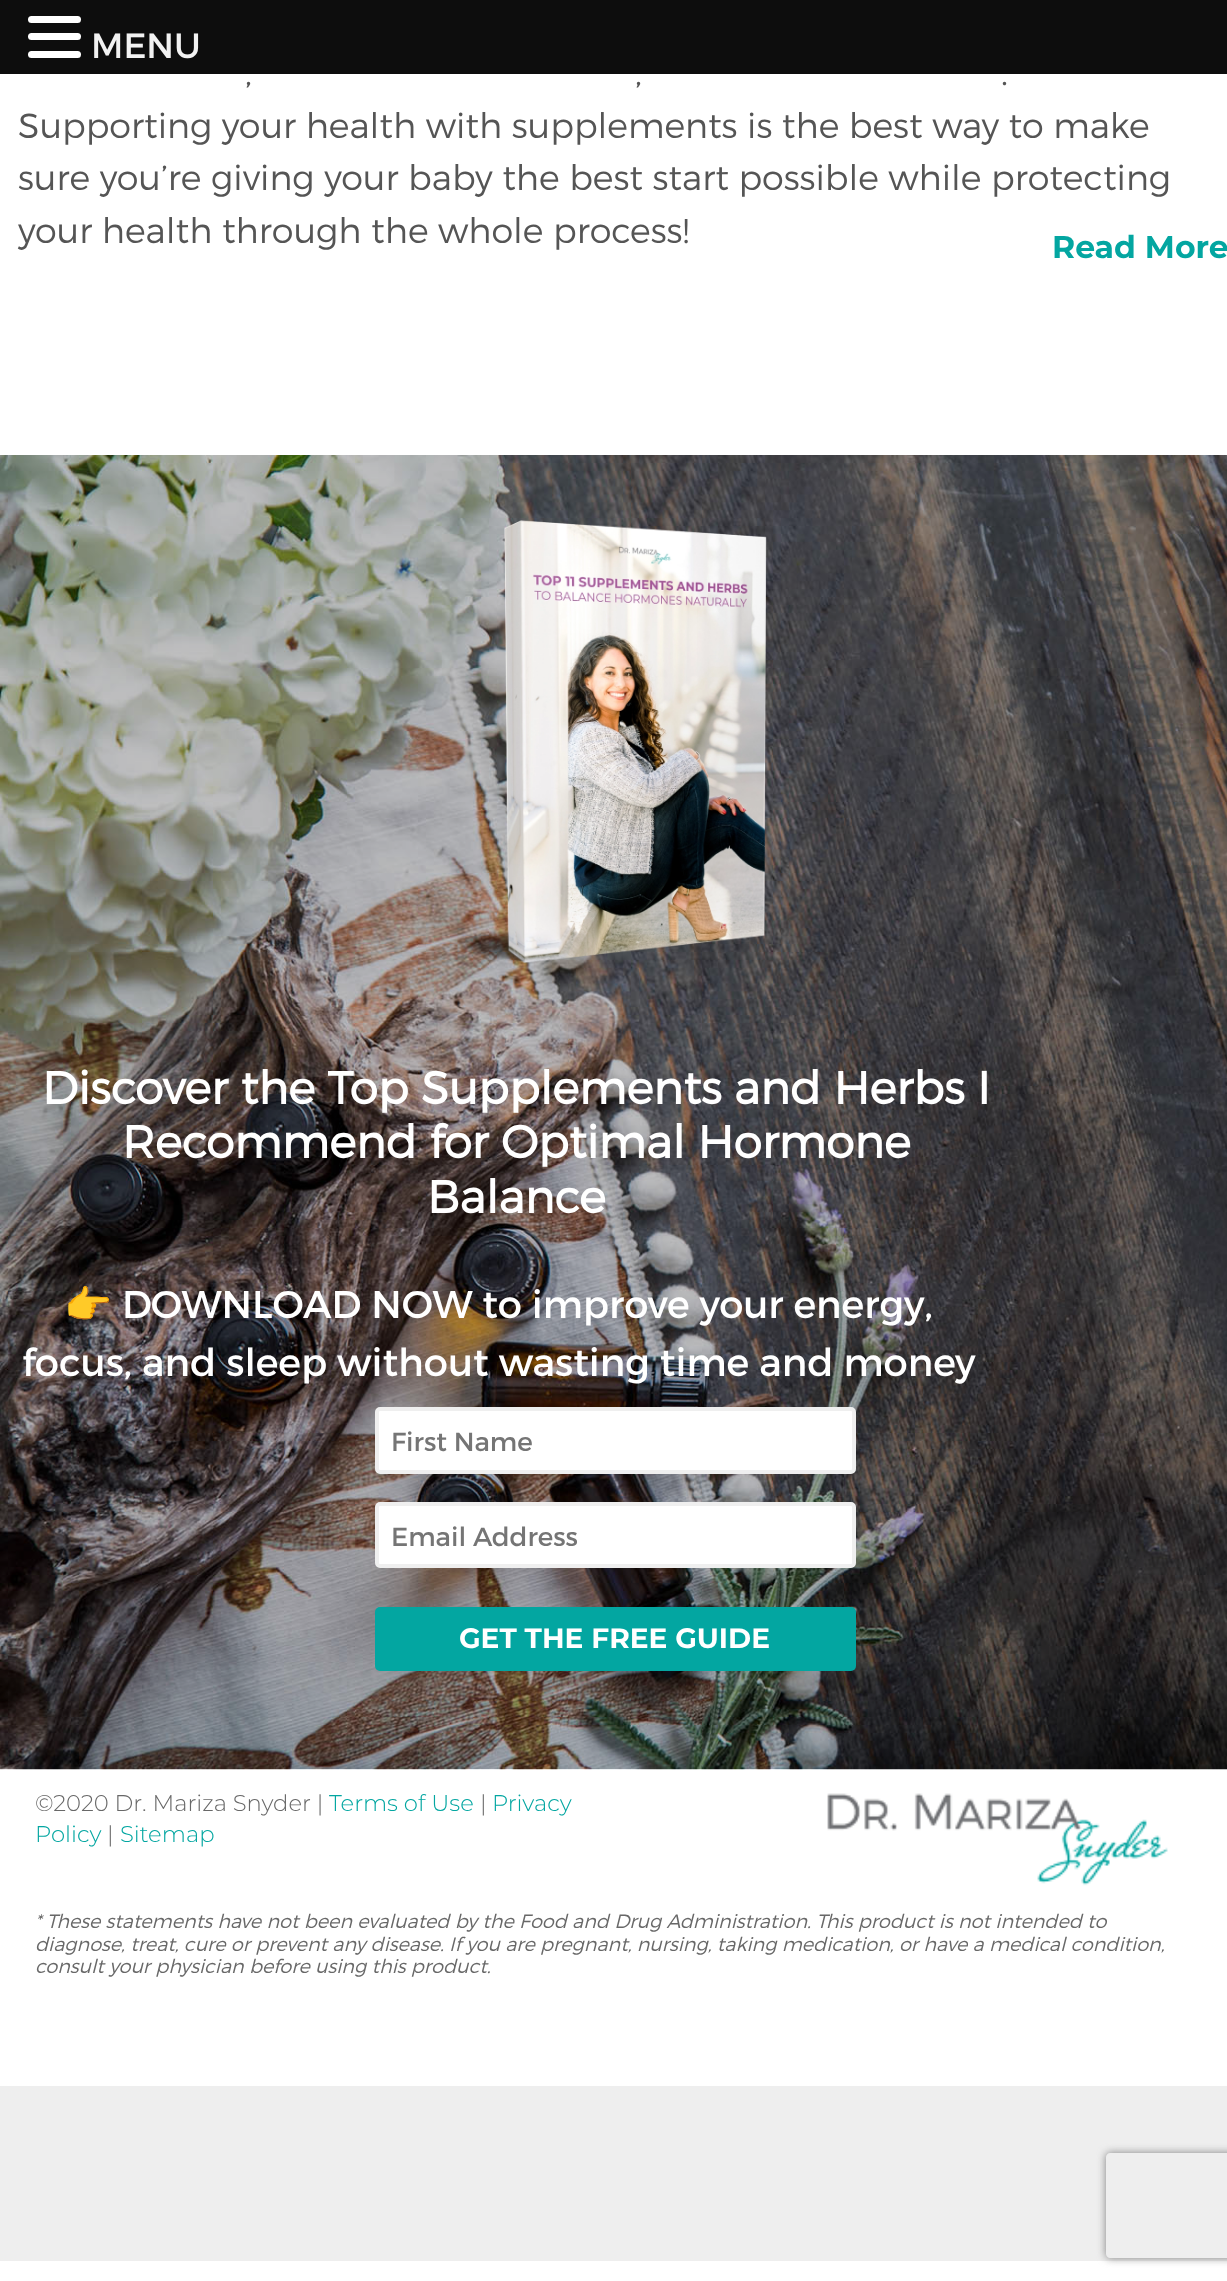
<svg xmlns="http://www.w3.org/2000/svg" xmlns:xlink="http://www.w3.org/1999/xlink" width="1227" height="2281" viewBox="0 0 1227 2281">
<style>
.cls-1{font:35px Montserrat;fill:#f2f2f2}
.cls-2{font:300 35px 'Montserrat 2';fill:#555555}
.cls-3{font:bold 31.5px Montserrat;fill:#03a6a1}
.cls-4{font:bold 45.5px 'Montserrat 2';fill:#ffffff}
.cls-5{font:38.5px Noto Color Emoji;fill:#ffffff}
.cls-6{font:38.5px Montserrat;fill:#ffffff}
.cls-7{font:26.25px Montserrat;fill:#757575}
.cls-8{font:bold 28px Montserrat;fill:#ffffff}
.cls-9{font:300 22.75px Montserrat;fill:#686868}
.cls-10{font:300 22.75px Montserrat;fill:#03a6a1}
.cls-11{font:italic 300 19.25px Montserrat;fill:#686868}
</style>
<defs>
<clipPath id="clip1"><path d="M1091 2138H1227V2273H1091ZM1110 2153H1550C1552 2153 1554 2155 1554 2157V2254C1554 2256 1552 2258 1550 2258H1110C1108 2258 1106 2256 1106 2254V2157C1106 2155 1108 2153 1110 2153Z" clip-rule="evenodd"/></clipPath>
</defs>
<rect width="100%" height="100%" fill="#ffffff"/>
<rect fill="#0d0d0d" x="0" y="0" width="1227" height="74"/>
<rect fill="#ffffff" x="28" y="16" width="53" height="7" rx="3.5"/>
<rect fill="#ffffff" x="28" y="33" width="53" height="7" rx="3.5"/>
<rect fill="#ffffff" x="28" y="51" width="53" height="7" rx="3.5"/>
<image xlink:href="image0.png" x="0" y="455" width="1227" height="1315"/>
<image xlink:href="image1.png" x="459" y="520" width="308" height="444"/>
<rect fill="#ffffff" stroke="#efefef" stroke-width="4" x="377" y="1409" width="477" height="63" rx="3"/>
<rect fill="#ffffff" stroke="#efefef" stroke-width="4" x="377" y="1504" width="477" height="62" rx="3"/>
<rect fill="#03a6a1" x="375" y="1607" width="481" height="64" rx="5"/>
<image xlink:href="image2.png" x="827" y="1793" width="341" height="93"/>
<rect fill="#eeeeee" x="0" y="2086" width="1227" height="175"/>
<g clip-path="url(#clip1)">
<rect fill="#808080" filter="blur(4.5px)" x="1106" y="2153" width="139" height="105" rx="4"/>
</g>
<text class="cls-1" x="91" y="58">MENU</text>
<text class="cls-2" x="245" y="85">,</text>
<text class="cls-2" x="635" y="85">,</text>
<text class="cls-2" x="1001" y="85">.</text>
<text class="cls-2"><tspan x="18" y="138">Supporting your health with supplements is the best way to make</tspan><tspan x="18" y="190">sure you’re giving your baby the best start possible while protecting</tspan><tspan x="18" y="243">your health through the whole process!</tspan></text>
<text class="cls-3" x="1052" y="258">Read More</text>
<text class="cls-4" x="42" y="1104">Discover the Top Supplements and Herbs I</text>
<text class="cls-4" x="122" y="1158">Recommend for Optimal Hormone</text>
<text class="cls-4" x="427" y="1213">Balance</text>
<text class="cls-5" x="64" y="1318">👉</text>
<text class="cls-6" x="122" y="1318">DOWNLOAD NOW to improve your energy,</text>
<text class="cls-6" x="22" y="1376">focus, and sleep without wasting time and money</text>
<text class="cls-7" x="391" y="1451">First Name</text>
<text class="cls-7" x="391" y="1546">Email Address</text>
<text class="cls-8" x="459" y="1648">GET THE FREE GUIDE</text>
<text class="cls-9" x="35" y="1811">©2020 Dr. Mariza Snyder |</text>
<text class="cls-10" x="329" y="1811">Terms of Use</text>
<text class="cls-9" x="480" y="1811">|</text>
<text class="cls-10" x="492" y="1811">Privacy</text>
<text class="cls-10" x="35" y="1842">Policy</text>
<text class="cls-9" x="107" y="1842">|</text>
<text class="cls-10" x="120" y="1842">Sitemap</text>
<text class="cls-11"><tspan x="35" y="1928">* These statements have not been evaluated by the Food and Drug Administration. This product is not intended to</tspan><tspan x="35" y="1951">diagnose, treat, cure or prevent any disease. If you are pregnant, nursing, taking medication, or have a medical condition,</tspan><tspan x="35" y="1973">consult your physician before using this product.</tspan></text>
</svg>
